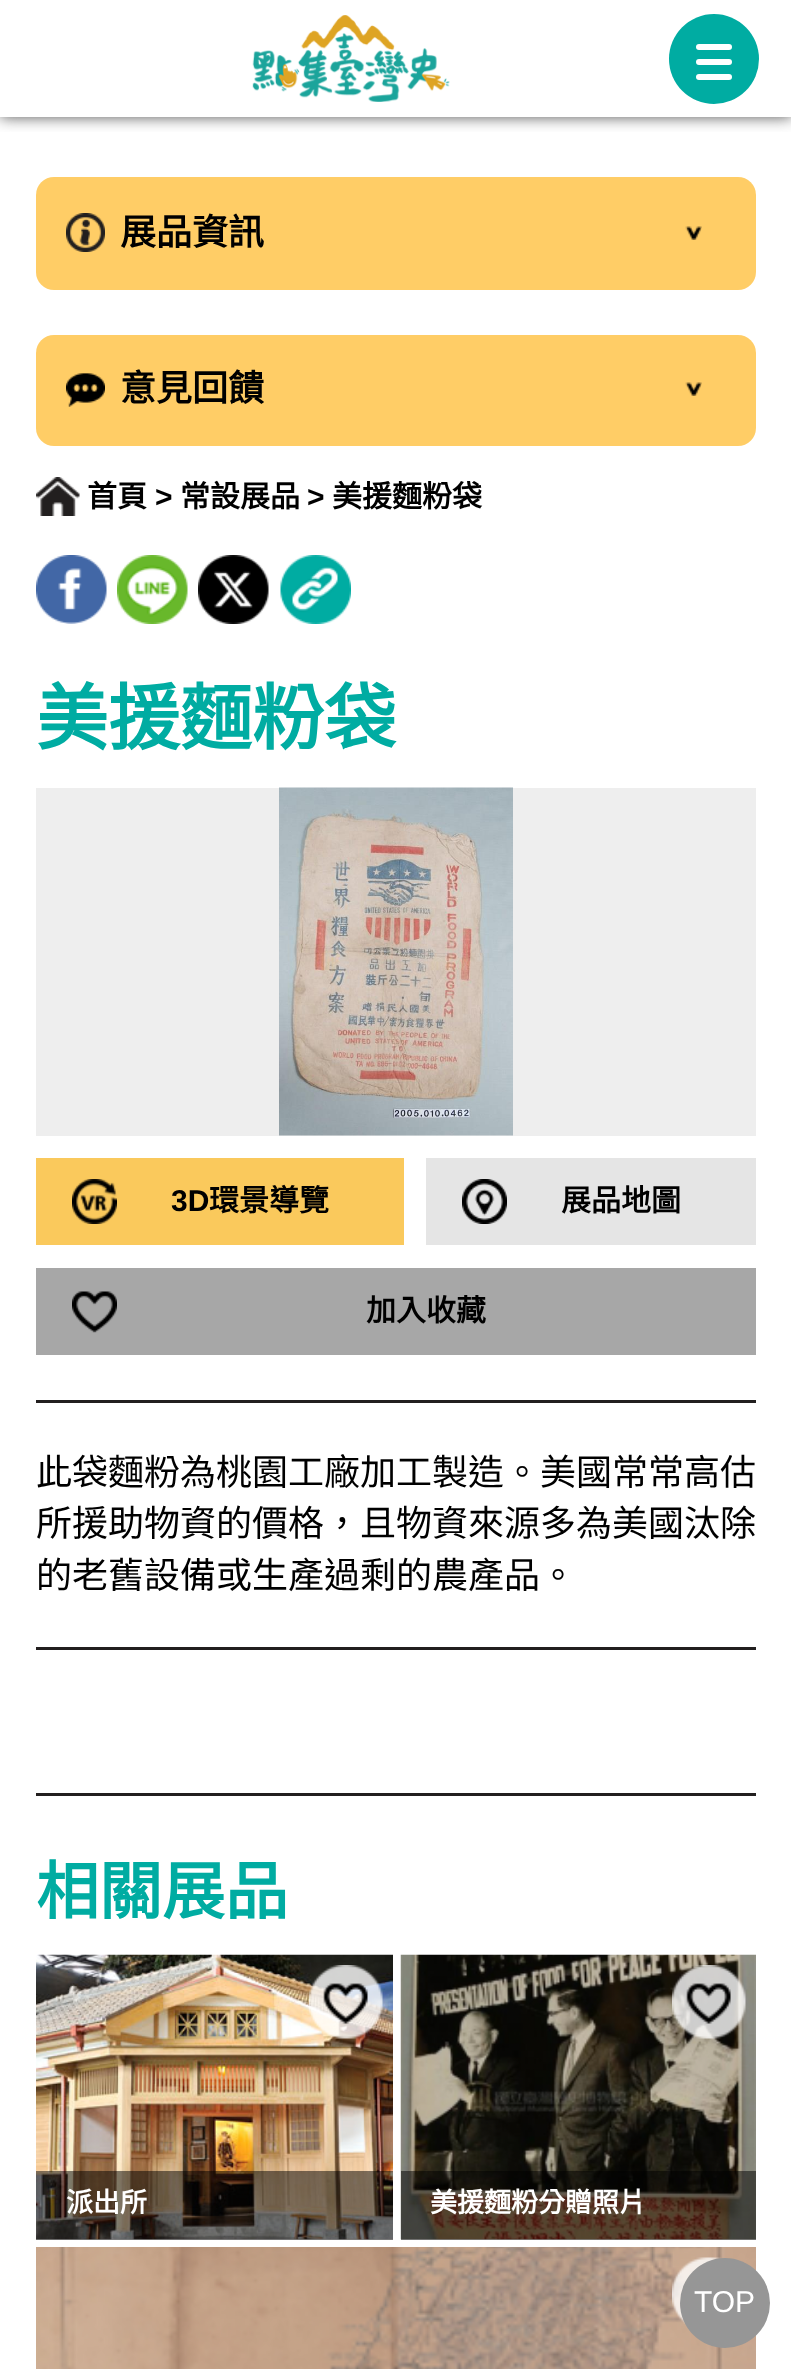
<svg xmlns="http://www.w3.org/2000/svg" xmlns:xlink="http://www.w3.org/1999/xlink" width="791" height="2369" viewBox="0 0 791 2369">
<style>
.cls-1{font:bold 36px Noto Sans CJK TC;fill:#000000}
.cls-2{font:bold 30px Noto Sans CJK TC;fill:#000000}
.cls-3{font:bold 30px Liberation Sans;fill:#000000}
.cls-4{font:bold 72px Noto Sans CJK TC;fill:#00aca2}
.cls-5{font:36px Noto Sans CJK TC;fill:#000000}
.cls-6{font:bold 63px Noto Sans CJK TC;fill:#00aca2}
.cls-7{font:bold 27px Noto Sans CJK TC;fill:#ffffff}
.cls-8{font:30px Liberation Sans;fill:#ffffff}
</style>
<defs>
<clipPath id="clip1"><rect x="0" y="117" width="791" height="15"/></clipPath>
</defs>
<rect width="100%" height="100%" fill="#ffffff"/>
<g clip-path="url(#clip1)">
<rect fill="#555555" filter="blur(7.5px)" x="0" y="0" width="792" height="117"/>
</g>
<image xlink:href="image0.png" x="252" y="15" width="198" height="87"/>
<circle fill="#00aca2" cx="714" cy="59" r="45"/>
<rect fill="#ffffff" x="696" y="44" width="36" height="6" rx="3"/>
<rect fill="#ffffff" x="696" y="59" width="36" height="6" rx="3"/>
<rect fill="#ffffff" x="696" y="74" width="36" height="6" rx="3"/>
<rect fill="#ffcd66" x="36" y="177" width="720" height="113" rx="18"/>
<image xlink:href="image1.png" x="66" y="213" width="39" height="39"/>
<image xlink:href="image2.png" x="685" y="226" width="17" height="14"/>
<rect fill="#ffcd66" x="36" y="335" width="720" height="111" rx="18"/>
<image xlink:href="image3.png" x="66" y="373" width="39" height="34"/>
<image xlink:href="image2.png" x="685" y="382" width="17" height="14"/>
<image xlink:href="image4.png" x="36" y="477" width="44" height="39"/>
<image xlink:href="image5.png" x="36" y="555" width="71" height="69"/>
<image xlink:href="image6.png" x="117" y="555" width="71" height="69"/>
<image xlink:href="image7.png" x="198" y="555" width="71" height="69"/>
<image xlink:href="image8.png" x="280" y="555" width="71" height="69"/>
<rect fill="#221f1f" x="36" y="1400" width="720" height="3"/>
<rect fill="#eeeeee" x="36" y="788" width="720" height="348"/>
<image xlink:href="image9.png" x="279" y="787" width="234" height="349"/>
<rect fill="#fac95c" x="36" y="1158" width="368" height="87"/>
<image xlink:href="image10.png" x="72" y="1179" width="45" height="45"/>
<rect fill="#e5e5e5" x="426" y="1158" width="330" height="87"/>
<image xlink:href="image11.png" x="462" y="1179" width="45" height="45"/>
<rect fill="#a7a7a7" x="36" y="1268" width="720" height="87"/>
<image xlink:href="image12.png" x="72" y="1291" width="45" height="42"/>
<rect fill="#221f1f" x="36" y="1647" width="720" height="3"/>
<rect fill="#221f1f" x="36" y="1793" width="720" height="3"/>
<image xlink:href="image14.png" x="36" y="1954" width="357" height="286"/>
<image xlink:href="image13.png" x="309" y="1965" width="74" height="74"/>
<rect fill="#000000" fill-opacity="0.5" x="36" y="2171" width="357" height="69"/>
<image xlink:href="image16.png" x="400" y="1954" width="356" height="286"/>
<image xlink:href="image15.png" x="672" y="1965" width="74" height="74"/>
<rect fill="#000000" fill-opacity="0.5" x="401" y="2171" width="355" height="69"/>
<image xlink:href="image17.png" x="36" y="2247" width="720" height="122"/>
<image xlink:href="image18.png" x="672" y="2257" width="50" height="69"/>
<circle fill="#969696" cx="725" cy="2303" r="45"/>
<text class="cls-1" x="120" y="245">展品資訊</text>
<text class="cls-1" x="120" y="401">意見回饋</text>
<text class="cls-2" x="87" y="507">首頁</text>
<text class="cls-3" x="155" y="507">&gt;</text>
<text class="cls-2" x="180" y="507">常設展品</text>
<text class="cls-3" x="307" y="507">&gt;</text>
<text class="cls-2" x="332" y="507">美援麵粉袋</text>
<text class="cls-4" x="36" y="744">美援麵粉袋</text>
<text class="cls-3" x="171" y="1211">3D</text>
<text class="cls-2" x="209" y="1211">環景導覽</text>
<text class="cls-2" x="561" y="1211">展品地圖</text>
<text class="cls-2" x="366" y="1321">加入收藏</text>
<text class="cls-5"><tspan x="36" y="1485">此袋麵粉為桃園工廠加工製造。美國常常高估</tspan><tspan x="36" y="1536">所援助物資的價格，且物資來源多為美國汰除</tspan><tspan x="36" y="1588">的老舊設備或生產過剩的農產品。</tspan></text>
<text class="cls-6" x="36" y="1914">相關展品</text>
<text class="cls-7" x="66" y="2212">派出所</text>
<text class="cls-7" x="430" y="2212">美援麵粉分贈照片</text>
<text class="cls-8" x="694" y="2312">TOP</text>
</svg>
